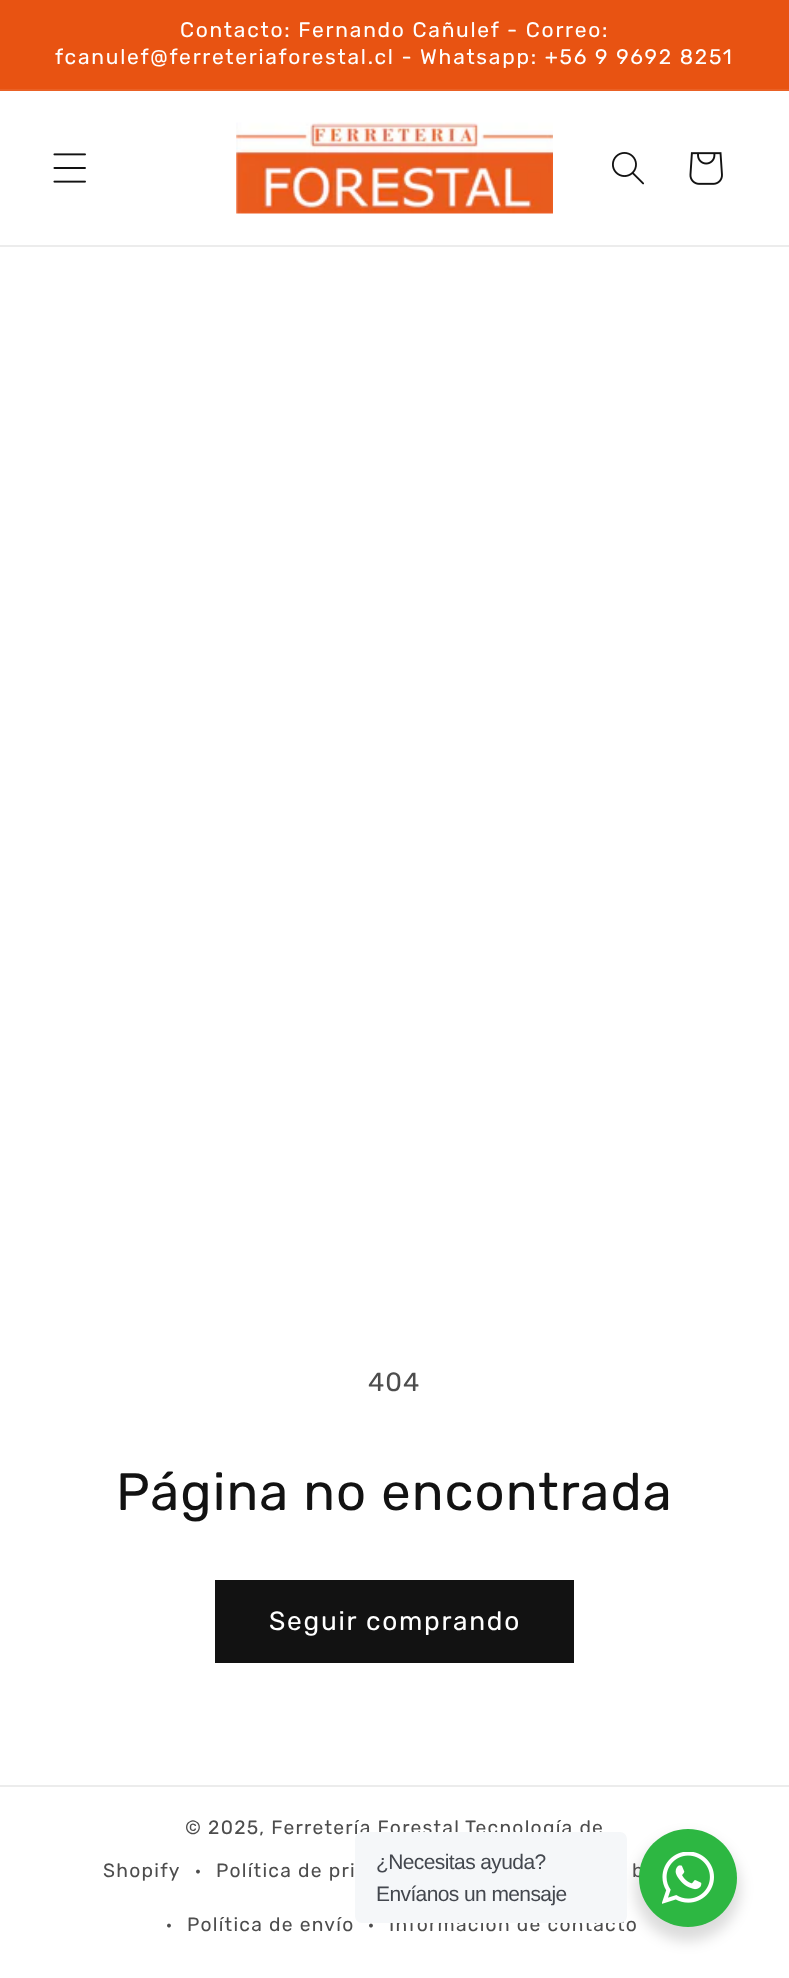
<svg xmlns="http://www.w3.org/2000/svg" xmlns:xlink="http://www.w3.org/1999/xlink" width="789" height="1978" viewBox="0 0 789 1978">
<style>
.cls-1{font:21px Rubik;letter-spacing:1.75px;fill:#ffffff}
.cls-2{font:26.25px Rubik;letter-spacing:1.05px;fill:#4d4d4d}
.cls-3{font:52.5px Rubik;letter-spacing:1.05px;fill:#121212}
.cls-4{font:26.25px Rubik;letter-spacing:1.75px;fill:#ffffff}
.cls-5{font:19.25px Rubik;letter-spacing:1.25px;fill:#4d4d4d}
.cls-6{font:18px Rubik;letter-spacing:1.25px;fill:#4d4d4d}
.cls-7{font:21px Liberation Sans;letter-spacing:-0.6px;fill:#43474e}
</style>
<rect width="100%" height="100%" fill="#ffffff"/>
<rect fill="#e85312" x="0" y="0" width="789" height="89"/>
<rect fill="#ea6125" x="0" y="89" width="789" height="2"/>
<rect fill="#ececec" x="0" y="245" width="789" height="2"/>
<image xlink:href="image0.png" x="53" y="153" width="33" height="30"/>
<image xlink:href="image1.png" x="236" y="122" width="317" height="92"/>
<image xlink:href="image2.png" x="612" y="152" width="32" height="33"/>
<image xlink:href="image3.png" x="689" y="152" width="34" height="33"/>
<rect fill="#121212" x="215" y="1580" width="359" height="83"/>
<rect fill="#ececec" x="0" y="1785" width="789" height="2"/>
<rect fill="#000000" fill-opacity="0.14" filter="blur(7px)" x="635" y="1836" width="105" height="105" rx="52.5"/>
<text class="cls-1" x="180" y="37">Contacto: Fernando Cañulef - Correo:</text>
<text class="cls-1" x="55" y="64">fcanulef@ferreteriaforestal.cl - Whatsapp: +56 9 9692 8251</text>
<text class="cls-2" x="368" y="1391">404</text>
<text class="cls-3" x="116" y="1510">Página no encontrada</text>
<text class="cls-4" x="269" y="1630">Seguir comprando</text>
<text class="cls-5" x="185" y="1834">© 2025, Ferretería Forestal</text>
<text class="cls-5" x="465" y="1834">Tecnología de</text>
<text class="cls-5" x="103" y="1877">Shopify</text>
<text class="cls-6" x="195" y="1877">·</text>
<text class="cls-5" x="216" y="1877">Política de pri</text>
<text class="cls-5" x="632" y="1877">b</text>
<text class="cls-6" x="166" y="1931">·</text>
<text class="cls-5" x="187" y="1931">Política de envío</text>
<text class="cls-6" x="368" y="1931">·</text>
<text class="cls-5" x="389" y="1931">Información de contacto</text>
<rect fill="#f5f7f9" x="355" y="1832" width="272" height="91" rx="7"/>
<text class="cls-7"><tspan x="376" y="1869">¿Necesitas ayuda?</tspan><tspan x="376" y="1901">Envíanos un mensaje</tspan></text>
<circle fill="#2db742" cx="688" cy="1878" r="49"/>
<image xlink:href="image4.png" x="662" y="1852" width="52" height="52"/>
</svg>
